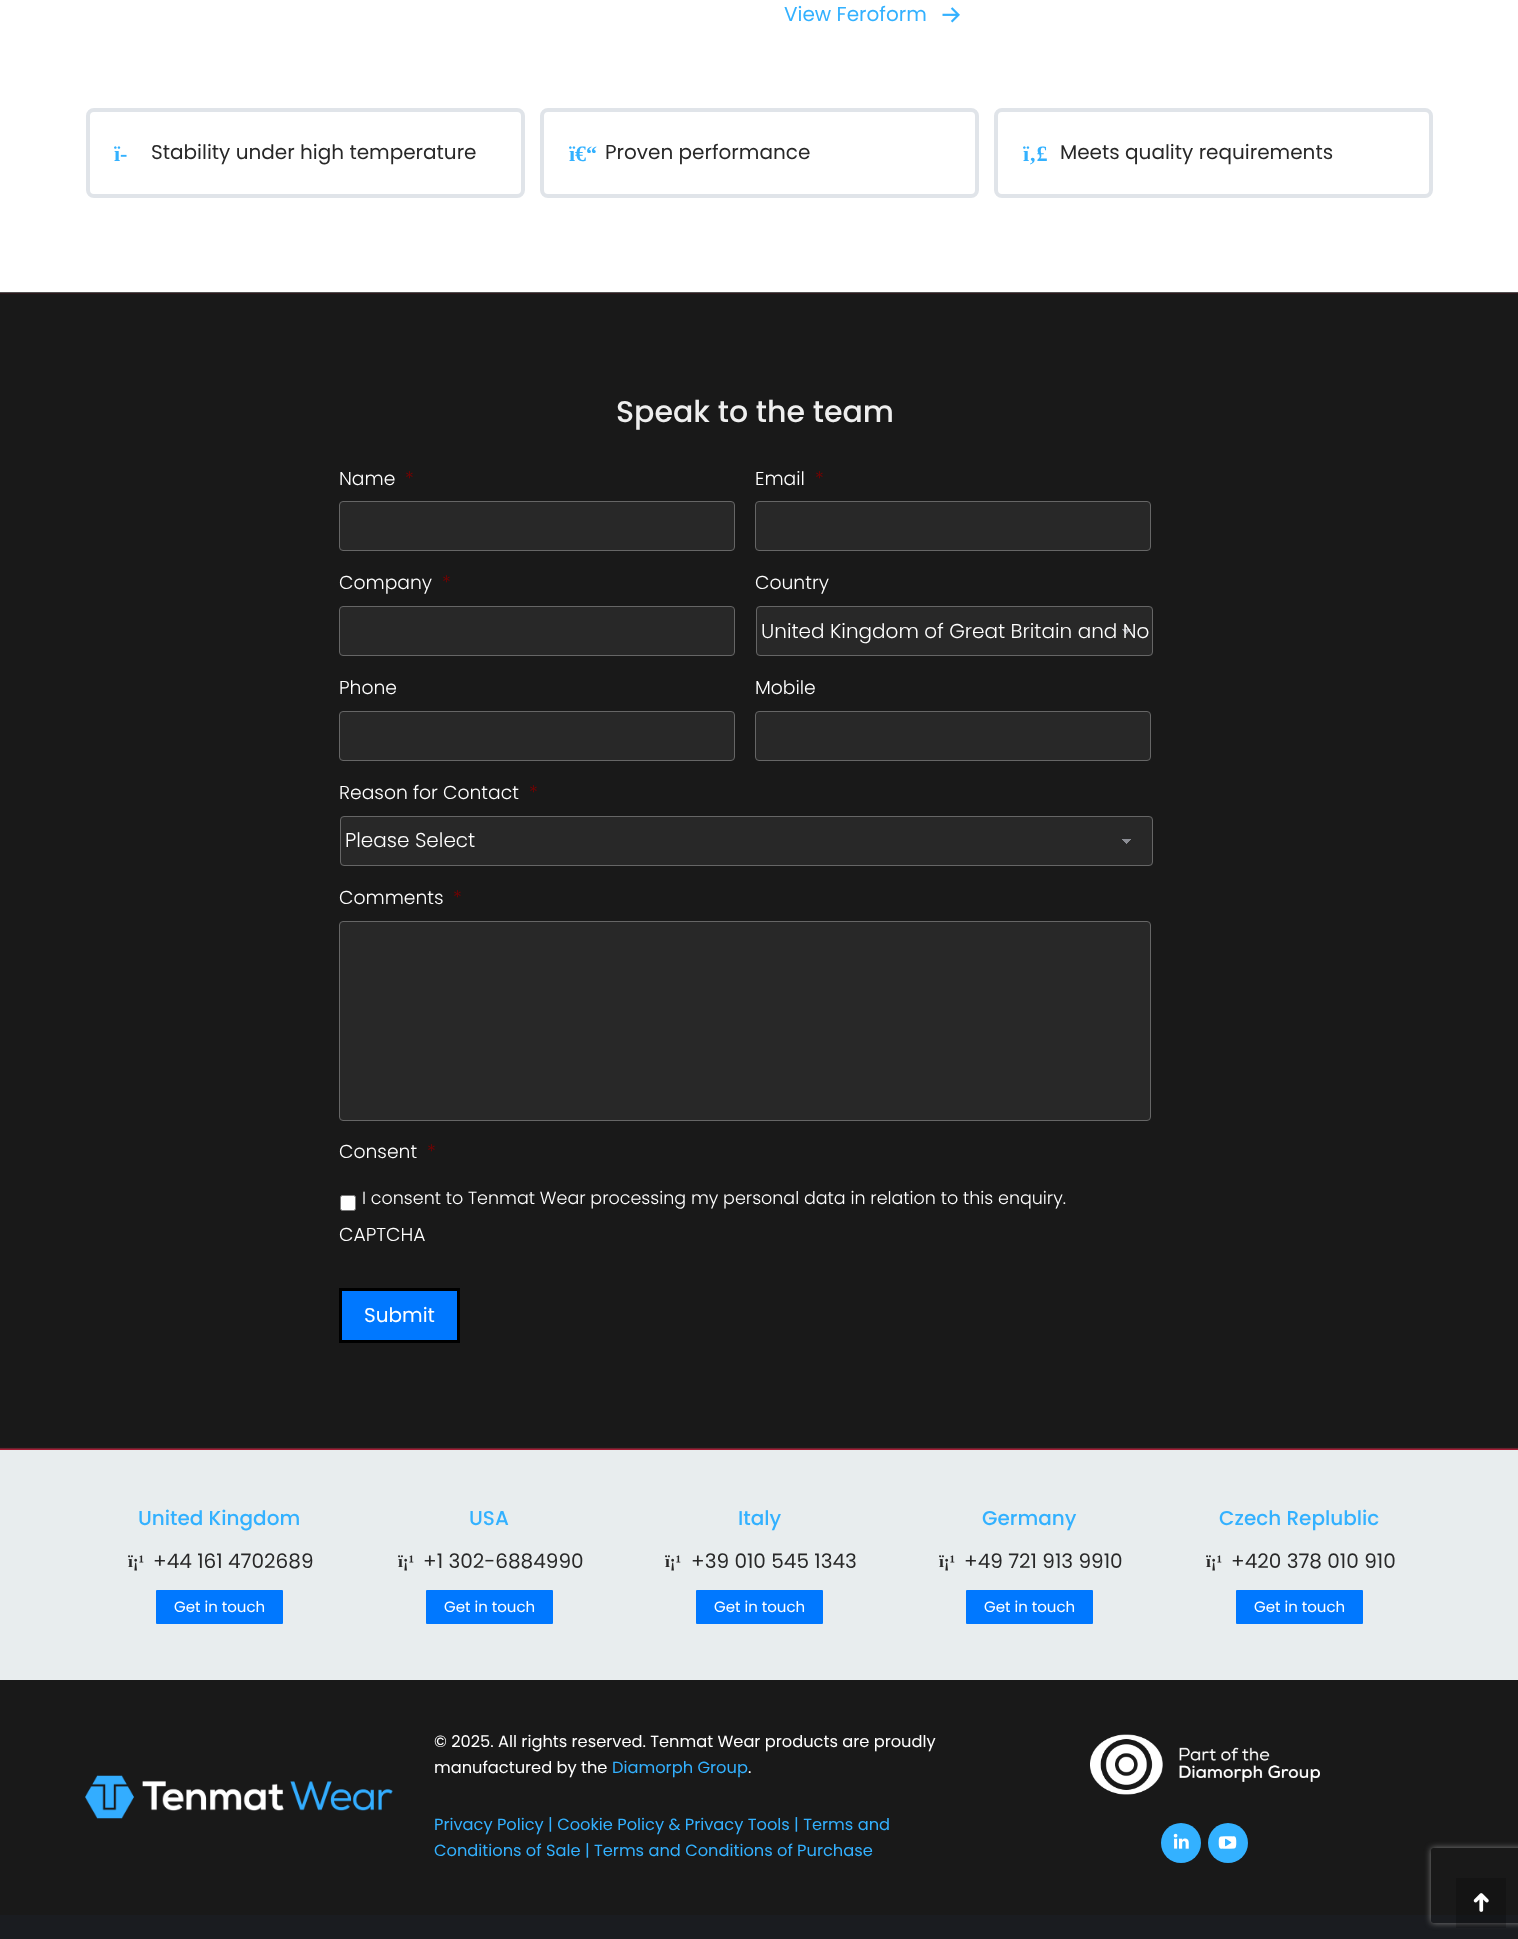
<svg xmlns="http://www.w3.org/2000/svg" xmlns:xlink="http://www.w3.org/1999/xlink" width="1518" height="1939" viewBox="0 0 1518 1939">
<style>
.cls-1{font:20px Poppins;fill:#33b1ff}
.cls-2{font:bold 22px Liberation Serif;fill:#33b1ff}
.cls-3{font:20px Poppins;fill:#282828}
.cls-4{font:500 30px Poppins;fill:#eeeeee}
.cls-5{font:300 18.75px Poppins;fill:#ffffff}
.cls-6{font:300 18.75px Poppins;fill:#790000}
.cls-7{font:300 20px Poppins;fill:#ffffff}
.cls-8{font:300 17.5px Poppins;fill:#ffffff}
.cls-9{font:20px Poppins;fill:#ffffff}
.cls-10{font:500 20px Poppins;fill:#33b1ff}
.cls-11{font:bold 17.5px Liberation Serif;fill:#282828}
.cls-12{font:15px Poppins;fill:#ffffff}
.cls-13{font:16.25px Poppins;fill:#ffffff}
.cls-14{font:16.25px Poppins;fill:#33b1ff}
</style>
<defs>
<linearGradient id="g1" gradientUnits="userSpaceOnUse" x1="1126" y1="628" x2="1133" y2="634"><stop offset="0.5" stop-color="#8b8d94"/><stop offset="0.5" stop-color="#282828"/></linearGradient>
<linearGradient id="g2" gradientUnits="userSpaceOnUse" x1="1120" y1="634" x2="1126" y2="628"><stop offset="0.5" stop-color="#282828"/><stop offset="0.5" stop-color="#8b8d94"/></linearGradient>
<linearGradient id="g3" gradientUnits="userSpaceOnUse" x1="1126" y1="838" x2="1133" y2="844"><stop offset="0.5" stop-color="#8b8d94"/><stop offset="0.5" stop-color="#282828"/></linearGradient>
<linearGradient id="g4" gradientUnits="userSpaceOnUse" x1="1120" y1="844" x2="1126" y2="838"><stop offset="0.5" stop-color="#282828"/><stop offset="0.5" stop-color="#8b8d94"/></linearGradient>
<clipPath id="clip1"><path d="M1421 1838H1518V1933H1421ZM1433.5 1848H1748.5C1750 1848 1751 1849 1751 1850.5V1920.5C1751 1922 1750 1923 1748.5 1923H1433.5C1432 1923 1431 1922 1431 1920.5V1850.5C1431 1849 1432 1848 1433.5 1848Z" clip-rule="evenodd"/></clipPath>
</defs>
<rect width="100%" height="100%" fill="#ffffff"/>
<image xlink:href="image0.png" x="942" y="7" width="18" height="16"/>
<rect fill="none" stroke="#e0e4e9" stroke-width="4" x="88" y="110" width="435" height="86" rx="6"/>
<rect fill="none" stroke="#e0e4e9" stroke-width="4" x="542" y="110" width="435" height="86" rx="6"/>
<rect fill="none" stroke="#e0e4e9" stroke-width="4" x="996" y="110" width="435" height="86" rx="6"/>
<rect fill="#1a1c20" x="0" y="1915" width="1518" height="24"/>
<rect fill="#cc1232" x="0" y="293" width="1518" height="1157"/>
<image xlink:href="image1.png" x="0" y="292" width="1518" height="1158"/>
<rect fill="#282828" stroke="#666666" x="339.5" y="501.5" width="395" height="49" rx="3.5"/>
<rect fill="#282828" stroke="#666666" x="755.5" y="501.5" width="395" height="49" rx="3.5"/>
<rect fill="#282828" stroke="#666666" x="339.5" y="606.5" width="395" height="49" rx="3.5"/>
<rect fill="#282828" x="756" y="606" width="397" height="50" rx="4"/>
<rect fill="url(#g1)" x="1126" y="629" width="7" height="5"/>
<rect fill="url(#g2)" x="1120" y="629" width="6" height="4"/>
<rect fill="none" stroke="#666666" x="756.5" y="606.5" width="396" height="49" rx="3.5"/>
<rect fill="#282828" stroke="#666666" x="339.5" y="711.5" width="395" height="49" rx="3.5"/>
<rect fill="#282828" stroke="#666666" x="755.5" y="711.5" width="395" height="49" rx="3.5"/>
<rect fill="#282828" x="340" y="816" width="813" height="50" rx="4"/>
<rect fill="url(#g3)" x="1126" y="839" width="7" height="5"/>
<rect fill="url(#g4)" x="1120" y="839" width="6" height="4"/>
<rect fill="none" stroke="#666666" x="340.5" y="816.5" width="812" height="49" rx="3.5"/>
<rect fill="#282828" stroke="#666666" x="339.5" y="921.5" width="811" height="199" rx="3.5"/>
<rect fill="#ffffff" stroke="#767676" x="340.5" y="1195.5" width="15" height="15" rx="2"/>
<rect fill="#0078ff" stroke="#000000" stroke-width="3" x="340.5" y="1289.5" width="118" height="52"/>
<rect fill="#e8edee" x="0" y="1450" width="1518" height="230"/>
<rect fill="#0078ff" x="156" y="1590" width="127" height="34" rx="1"/>
<rect fill="#0078ff" x="426" y="1590" width="127" height="34" rx="1"/>
<rect fill="#0078ff" x="696" y="1590" width="127" height="34" rx="1"/>
<rect fill="#0078ff" x="966" y="1590" width="127" height="34" rx="1"/>
<rect fill="#0078ff" x="1236" y="1590" width="127" height="34" rx="1"/>
<rect fill="#191919" x="0" y="1680" width="1518" height="235"/>
<image xlink:href="image2.png" x="85" y="1775" width="308" height="44"/>
<image xlink:href="image3.png" x="1090" y="1734" width="230" height="61"/>
<circle fill="#33b1ff" cx="1181" cy="1843" r="20"/>
<image xlink:href="image4.png" x="1173" y="1833" width="16" height="16"/>
<circle fill="#33b1ff" cx="1228" cy="1843" r="20"/>
<image xlink:href="image5.png" x="1218" y="1836" width="19" height="13"/>
<g clip-path="url(#clip1)">
<rect fill="#808080" filter="blur(3px)" x="1431" y="1848" width="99" height="75" rx="2.5"/>
</g>
<rect fill="#000000" fill-opacity="0.2" x="1456" y="1878" width="50" height="50"/>
<image xlink:href="image6.png" x="1473" y="1893" width="16" height="19"/>
<text class="cls-1" x="784" y="21">View Feroform</text>
<text class="cls-2" x="114" y="161">ï-</text>
<text class="cls-3" x="151" y="159">Stability under high temperature</text>
<text class="cls-2" x="569" y="161">ï€“</text>
<text class="cls-3" x="605" y="159">Proven performance</text>
<text class="cls-2" x="1023" y="161">ï‚£</text>
<text class="cls-3" x="1060" y="159">Meets quality requirements</text>
<text class="cls-4" x="616" y="422">Speak to the team</text>
<text class="cls-5" x="339" y="485">Name</text>
<text class="cls-6" x="405" y="485">*</text>
<text class="cls-5" x="755" y="485">Email</text>
<text class="cls-6" x="815" y="485">*</text>
<text class="cls-5" x="339" y="589">Company</text>
<text class="cls-6" x="442" y="589">*</text>
<text class="cls-5" x="755" y="589">Country</text>
<text class="cls-7" x="761" y="638">United Kingdom of Great Britain and No</text>
<text class="cls-5" x="339" y="694">Phone</text>
<text class="cls-5" x="755" y="694">Mobile</text>
<text class="cls-5" x="339" y="799">Reason for Contact</text>
<text class="cls-6" x="529" y="799">*</text>
<text class="cls-7" x="345" y="847">Please Select</text>
<text class="cls-5" x="339" y="904">Comments</text>
<text class="cls-6" x="453" y="904">*</text>
<text class="cls-5" x="339" y="1158">Consent</text>
<text class="cls-6" x="427" y="1158">*</text>
<text class="cls-8" x="362" y="1204">I consent to Tenmat Wear processing my personal data in relation to this enquiry.</text>
<text class="cls-5" x="339" y="1241">CAPTCHA</text>
<text class="cls-9" x="364" y="1322">Submit</text>
<text class="cls-10" x="138" y="1525">United Kingdom</text>
<text class="cls-11" x="128" y="1567">ï¡¹</text>
<text class="cls-3" x="153" y="1568">+44 161 4702689</text>
<text class="cls-12" x="174" y="1612">Get in touch</text>
<text class="cls-10" x="469" y="1525">USA</text>
<text class="cls-11" x="398" y="1567">ï¡¹</text>
<text class="cls-3" x="423" y="1568">+1 302-6884990</text>
<text class="cls-12" x="444" y="1612">Get in touch</text>
<text class="cls-10" x="738" y="1525">Italy</text>
<text class="cls-11" x="665" y="1567">ï¡¹</text>
<text class="cls-3" x="691" y="1568">+39 010 545 1343</text>
<text class="cls-12" x="714" y="1612">Get in touch</text>
<text class="cls-10" x="982" y="1525">Germany</text>
<text class="cls-11" x="939" y="1567">ï¡¹</text>
<text class="cls-3" x="964" y="1568">+49 721 913 9910</text>
<text class="cls-12" x="984" y="1612">Get in touch</text>
<text class="cls-10" x="1219" y="1525">Czech Replublic</text>
<text class="cls-11" x="1206" y="1567">ï¡¹</text>
<text class="cls-3" x="1231" y="1568">+420 378 010 910</text>
<text class="cls-12" x="1254" y="1612">Get in touch</text>
<text class="cls-13"><tspan x="434" y="1747">© 2025. All rights reserved. Tenmat Wear products are proudly</tspan><tspan x="434" y="1773">manufactured by the</tspan></text>
<text class="cls-14" x="612" y="1773">Diamorph Group</text>
<text class="cls-13" x="748" y="1773">.</text>
<text class="cls-14"><tspan x="434" y="1830">Privacy Policy | Cookie Policy &amp; Privacy Tools | Terms and</tspan><tspan x="434" y="1856">Conditions of Sale | Terms and Conditions of Purchase</tspan></text>
</svg>
